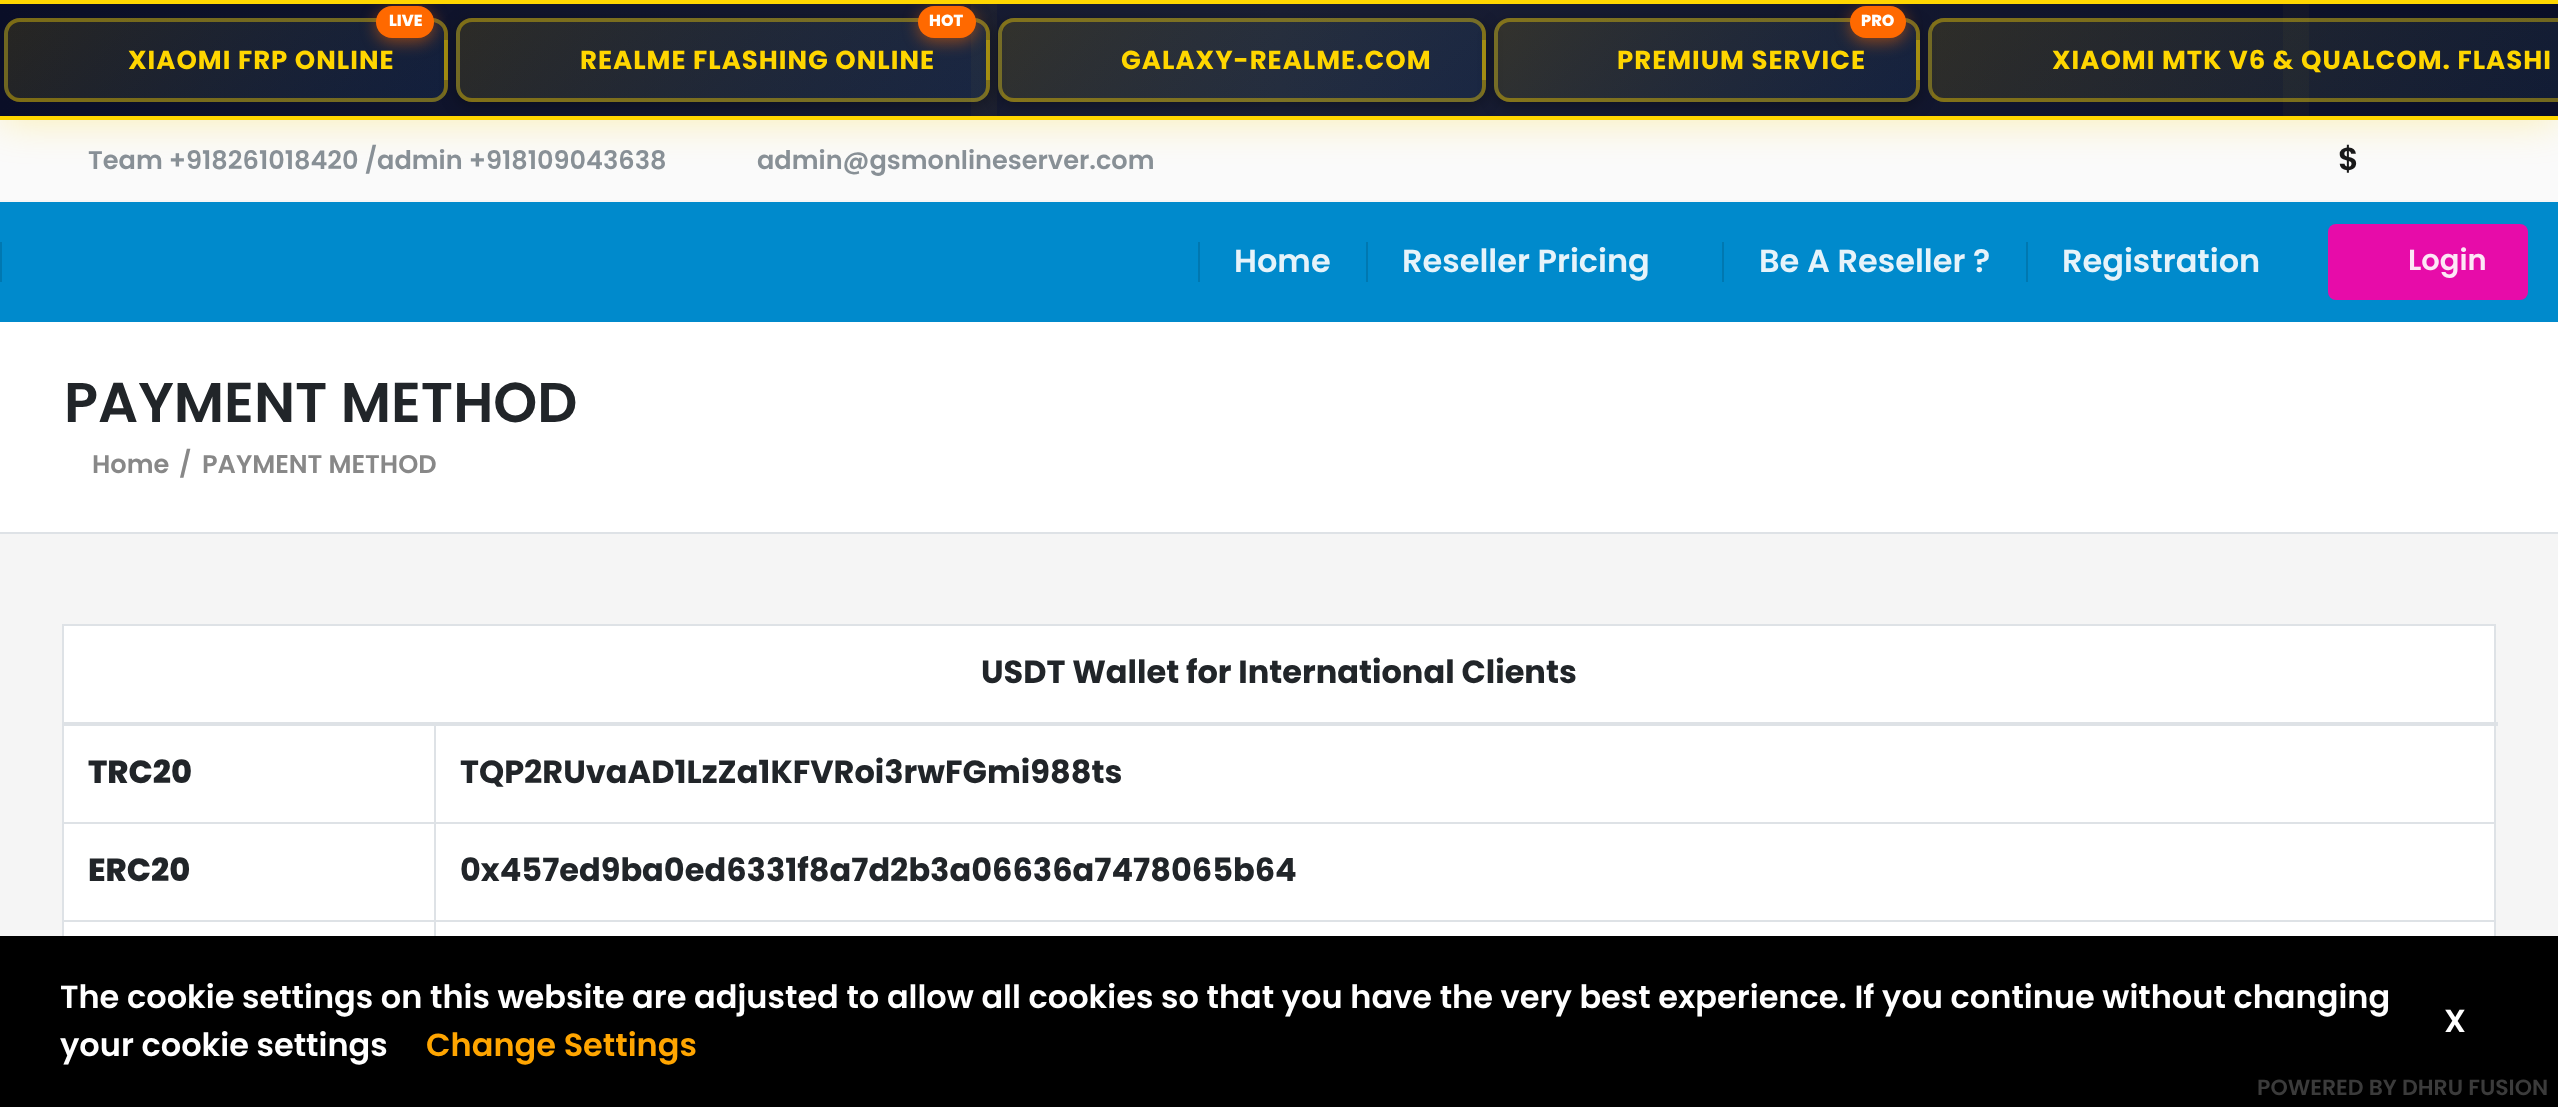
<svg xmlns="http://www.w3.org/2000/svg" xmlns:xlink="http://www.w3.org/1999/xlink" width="2558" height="1107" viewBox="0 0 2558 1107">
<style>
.cls-1{font:800 16px Poppins;fill:#ffffff}
.cls-2{font:bold 26px Poppins;letter-spacing:1px;fill:#ffd600}
.cls-3{font:600 25.6px Poppins;fill:#889096}
.cls-4{font:600 32px Poppins;fill:#191919}
.cls-5{font:600 32px Poppins;fill:#e6f3fa}
.cls-6{font:600 29px Poppins;fill:#fde7f6}
.cls-7{font:600 56px Poppins;fill:#212529}
.cls-8{font:600 25.6px Poppins;fill:#888888}
.cls-9{font:bold 32px Poppins;fill:#212529}
.cls-10{font:800 32px Poppins;fill:#212529}
.cls-11{font:600 32px Poppins;fill:#ffffff}
.cls-12{font:600 32px Poppins;fill:#ffa500}
.cls-13{font:600 22px Poppins;fill:#3b3b3b}
</style>
<defs>
<linearGradient id="g1" gradientUnits="userSpaceOnUse" x1="0" y1="60" x2="2558" y2="60"><stop offset="0" stop-color="#0a0e27"/><stop offset="0.5" stop-color="#1a1f35"/><stop offset="1" stop-color="#0a0e27"/></linearGradient>
<linearGradient id="g2" gradientUnits="userSpaceOnUse" x1="0" y1="60" x2="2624" y2="60"><stop offset="0" stop-color="#000000" stop-opacity="0"/><stop offset="0.03" stop-color="#ffd600" stop-opacity="0"/><stop offset="0.03" stop-color="#ffd600" stop-opacity="0.03"/><stop offset="0.03" stop-color="#ffd600" stop-opacity="0.03"/><stop offset="0.03" stop-color="#ffd600" stop-opacity="0"/><stop offset="0.06" stop-color="#ffd600" stop-opacity="0"/><stop offset="0.06" stop-color="#ffd600" stop-opacity="0.03"/><stop offset="0.06" stop-color="#ffd600" stop-opacity="0.03"/><stop offset="0.06" stop-color="#ffd600" stop-opacity="0"/><stop offset="0.09" stop-color="#ffd600" stop-opacity="0"/><stop offset="0.09" stop-color="#ffd600" stop-opacity="0.03"/><stop offset="0.09" stop-color="#ffd600" stop-opacity="0.03"/><stop offset="0.09" stop-color="#ffd600" stop-opacity="0"/><stop offset="0.12" stop-color="#ffd600" stop-opacity="0"/><stop offset="0.12" stop-color="#ffd600" stop-opacity="0.03"/><stop offset="0.12" stop-color="#ffd600" stop-opacity="0.03"/><stop offset="0.12" stop-color="#ffd600" stop-opacity="0"/><stop offset="0.16" stop-color="#ffd600" stop-opacity="0"/><stop offset="0.16" stop-color="#ffd600" stop-opacity="0.03"/><stop offset="0.16" stop-color="#ffd600" stop-opacity="0.03"/><stop offset="0.16" stop-color="#ffd600" stop-opacity="0"/><stop offset="0.19" stop-color="#ffd600" stop-opacity="0"/><stop offset="0.19" stop-color="#ffd600" stop-opacity="0.03"/><stop offset="0.19" stop-color="#ffd600" stop-opacity="0.03"/><stop offset="0.19" stop-color="#ffd600" stop-opacity="0"/><stop offset="0.22" stop-color="#ffd600" stop-opacity="0"/><stop offset="0.22" stop-color="#ffd600" stop-opacity="0.03"/><stop offset="0.22" stop-color="#ffd600" stop-opacity="0.03"/><stop offset="0.22" stop-color="#ffd600" stop-opacity="0"/><stop offset="0.25" stop-color="#ffd600" stop-opacity="0"/><stop offset="0.25" stop-color="#ffd600" stop-opacity="0.03"/><stop offset="0.25" stop-color="#ffd600" stop-opacity="0.03"/><stop offset="0.25" stop-color="#ffd600" stop-opacity="0"/><stop offset="0.28" stop-color="#ffd600" stop-opacity="0"/><stop offset="0.28" stop-color="#ffd600" stop-opacity="0.03"/><stop offset="0.28" stop-color="#ffd600" stop-opacity="0.03"/><stop offset="0.28" stop-color="#ffd600" stop-opacity="0"/><stop offset="0.31" stop-color="#ffd600" stop-opacity="0"/><stop offset="0.31" stop-color="#ffd600" stop-opacity="0.03"/><stop offset="0.31" stop-color="#ffd600" stop-opacity="0.03"/><stop offset="0.31" stop-color="#ffd600" stop-opacity="0"/><stop offset="0.34" stop-color="#ffd600" stop-opacity="0"/><stop offset="0.34" stop-color="#ffd600" stop-opacity="0.03"/><stop offset="0.34" stop-color="#ffd600" stop-opacity="0.03"/><stop offset="0.34" stop-color="#ffd600" stop-opacity="0"/><stop offset="0.37" stop-color="#ffd600" stop-opacity="0"/><stop offset="0.37" stop-color="#ffd600" stop-opacity="0.03"/><stop offset="0.38" stop-color="#ffd600" stop-opacity="0.03"/><stop offset="0.38" stop-color="#ffd600" stop-opacity="0"/><stop offset="0.41" stop-color="#ffd600" stop-opacity="0"/><stop offset="0.41" stop-color="#ffd600" stop-opacity="0.03"/><stop offset="0.41" stop-color="#ffd600" stop-opacity="0.03"/><stop offset="0.41" stop-color="#ffd600" stop-opacity="0"/><stop offset="0.44" stop-color="#ffd600" stop-opacity="0"/><stop offset="0.44" stop-color="#ffd600" stop-opacity="0.03"/><stop offset="0.44" stop-color="#ffd600" stop-opacity="0.03"/><stop offset="0.44" stop-color="#ffd600" stop-opacity="0"/><stop offset="0.47" stop-color="#ffd600" stop-opacity="0"/><stop offset="0.47" stop-color="#ffd600" stop-opacity="0.03"/><stop offset="0.47" stop-color="#ffd600" stop-opacity="0.03"/><stop offset="0.47" stop-color="#ffd600" stop-opacity="0"/><stop offset="0.5" stop-color="#ffd600" stop-opacity="0"/><stop offset="0.5" stop-color="#ffd600" stop-opacity="0.03"/><stop offset="0.5" stop-color="#ffd600" stop-opacity="0.03"/><stop offset="0.5" stop-color="#ffd600" stop-opacity="0"/><stop offset="0.53" stop-color="#ffd600" stop-opacity="0"/><stop offset="0.53" stop-color="#ffd600" stop-opacity="0.03"/><stop offset="0.53" stop-color="#ffd600" stop-opacity="0.03"/><stop offset="0.53" stop-color="#ffd600" stop-opacity="0"/><stop offset="0.56" stop-color="#ffd600" stop-opacity="0"/><stop offset="0.56" stop-color="#ffd600" stop-opacity="0.03"/><stop offset="0.56" stop-color="#ffd600" stop-opacity="0.03"/><stop offset="0.56" stop-color="#ffd600" stop-opacity="0"/><stop offset="0.59" stop-color="#ffd600" stop-opacity="0"/><stop offset="0.59" stop-color="#ffd600" stop-opacity="0.03"/><stop offset="0.59" stop-color="#ffd600" stop-opacity="0.03"/><stop offset="0.59" stop-color="#ffd600" stop-opacity="0"/><stop offset="0.62" stop-color="#ffd600" stop-opacity="0"/><stop offset="0.62" stop-color="#ffd600" stop-opacity="0.03"/><stop offset="0.62" stop-color="#ffd600" stop-opacity="0.03"/><stop offset="0.62" stop-color="#ffd600" stop-opacity="0"/><stop offset="0.66" stop-color="#ffd600" stop-opacity="0"/><stop offset="0.66" stop-color="#ffd600" stop-opacity="0.03"/><stop offset="0.66" stop-color="#ffd600" stop-opacity="0.03"/><stop offset="0.66" stop-color="#ffd600" stop-opacity="0"/><stop offset="0.69" stop-color="#ffd600" stop-opacity="0"/><stop offset="0.69" stop-color="#ffd600" stop-opacity="0.03"/><stop offset="0.69" stop-color="#ffd600" stop-opacity="0.03"/><stop offset="0.69" stop-color="#ffd600" stop-opacity="0"/><stop offset="0.72" stop-color="#ffd600" stop-opacity="0"/><stop offset="0.72" stop-color="#ffd600" stop-opacity="0.03"/><stop offset="0.72" stop-color="#ffd600" stop-opacity="0.03"/><stop offset="0.72" stop-color="#ffd600" stop-opacity="0"/><stop offset="0.75" stop-color="#ffd600" stop-opacity="0"/><stop offset="0.75" stop-color="#ffd600" stop-opacity="0.03"/><stop offset="0.75" stop-color="#ffd600" stop-opacity="0.03"/><stop offset="0.75" stop-color="#ffd600" stop-opacity="0"/><stop offset="0.78" stop-color="#ffd600" stop-opacity="0"/><stop offset="0.78" stop-color="#ffd600" stop-opacity="0.03"/><stop offset="0.78" stop-color="#ffd600" stop-opacity="0.03"/><stop offset="0.78" stop-color="#ffd600" stop-opacity="0"/><stop offset="0.81" stop-color="#ffd600" stop-opacity="0"/><stop offset="0.81" stop-color="#ffd600" stop-opacity="0.03"/><stop offset="0.81" stop-color="#ffd600" stop-opacity="0.03"/><stop offset="0.81" stop-color="#ffd600" stop-opacity="0"/><stop offset="0.84" stop-color="#ffd600" stop-opacity="0"/><stop offset="0.84" stop-color="#ffd600" stop-opacity="0.03"/><stop offset="0.84" stop-color="#ffd600" stop-opacity="0.03"/><stop offset="0.84" stop-color="#ffd600" stop-opacity="0"/><stop offset="0.87" stop-color="#ffd600" stop-opacity="0"/><stop offset="0.87" stop-color="#ffd600" stop-opacity="0.03"/><stop offset="0.88" stop-color="#ffd600" stop-opacity="0.03"/><stop offset="0.88" stop-color="#ffd600" stop-opacity="0"/><stop offset="0.91" stop-color="#ffd600" stop-opacity="0"/><stop offset="0.91" stop-color="#ffd600" stop-opacity="0.03"/><stop offset="0.91" stop-color="#ffd600" stop-opacity="0.03"/><stop offset="0.91" stop-color="#ffd600" stop-opacity="0"/><stop offset="0.94" stop-color="#ffd600" stop-opacity="0"/><stop offset="0.94" stop-color="#ffd600" stop-opacity="0.03"/><stop offset="0.94" stop-color="#ffd600" stop-opacity="0.03"/><stop offset="0.94" stop-color="#ffd600" stop-opacity="0"/><stop offset="0.97" stop-color="#ffd600" stop-opacity="0"/><stop offset="0.97" stop-color="#ffd600" stop-opacity="0.03"/><stop offset="0.97" stop-color="#ffd600" stop-opacity="0.03"/><stop offset="0.97" stop-color="#ffd600" stop-opacity="0"/><stop offset="1" stop-color="#ffd600" stop-opacity="0"/><stop offset="1" stop-color="#ffd600" stop-opacity="0.03"/><stop offset="1" stop-color="#ffd600" stop-opacity="0.03"/></linearGradient>
<clipPath id="clip1"><rect x="4" y="18" width="444" height="84" rx="16"/></clipPath>
<linearGradient id="g3" gradientUnits="userSpaceOnUse" x1="98" y1="-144" x2="354" y2="112"><stop offset="0" stop-color="#ffd600" stop-opacity="0.12"/><stop offset="1" stop-color="#36a1ff" stop-opacity="0.08"/></linearGradient>
<linearGradient id="g4" gradientUnits="userSpaceOnUse" x1="-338" y1="-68" x2="-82" y2="188"><stop offset="0" stop-color="#ffd600" stop-opacity="0.12"/><stop offset="1" stop-color="#36a1ff" stop-opacity="0.08"/></linearGradient>
<linearGradient id="g5" gradientUnits="userSpaceOnUse" x1="98" y1="-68" x2="354" y2="188"><stop offset="0" stop-color="#ffd600" stop-opacity="0.12"/><stop offset="1" stop-color="#36a1ff" stop-opacity="0.08"/></linearGradient>
<linearGradient id="g6" gradientUnits="userSpaceOnUse" x1="534" y1="-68" x2="790" y2="188"><stop offset="0" stop-color="#ffd600" stop-opacity="0.12"/><stop offset="1" stop-color="#36a1ff" stop-opacity="0.08"/></linearGradient>
<linearGradient id="g7" gradientUnits="userSpaceOnUse" x1="98" y1="8" x2="354" y2="264"><stop offset="0" stop-color="#ffd600" stop-opacity="0.12"/><stop offset="1" stop-color="#36a1ff" stop-opacity="0.08"/></linearGradient>
<clipPath id="clip2"><rect x="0" y="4" width="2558" height="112"/></clipPath>
<clipPath id="clip3"><path d="M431 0H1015V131H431ZM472 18H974C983 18 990 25 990 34V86C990 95 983 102 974 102H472C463 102 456 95 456 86V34C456 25 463 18 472 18Z" clip-rule="evenodd"/></clipPath>
<clipPath id="clip4"><rect x="456" y="18" width="534" height="84" rx="16"/></clipPath>
<linearGradient id="g8" gradientUnits="userSpaceOnUse" x1="573" y1="-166" x2="874" y2="135"><stop offset="0" stop-color="#ffd600" stop-opacity="0.12"/><stop offset="1" stop-color="#36a1ff" stop-opacity="0.08"/></linearGradient>
<linearGradient id="g9" gradientUnits="userSpaceOnUse" x1="46" y1="-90" x2="348" y2="211"><stop offset="0" stop-color="#ffd600" stop-opacity="0.12"/><stop offset="1" stop-color="#36a1ff" stop-opacity="0.08"/></linearGradient>
<linearGradient id="g10" gradientUnits="userSpaceOnUse" x1="573" y1="-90" x2="874" y2="211"><stop offset="0" stop-color="#ffd600" stop-opacity="0.12"/><stop offset="1" stop-color="#36a1ff" stop-opacity="0.08"/></linearGradient>
<linearGradient id="g11" gradientUnits="userSpaceOnUse" x1="1099" y1="-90" x2="1400" y2="211"><stop offset="0" stop-color="#ffd600" stop-opacity="0.12"/><stop offset="1" stop-color="#36a1ff" stop-opacity="0.08"/></linearGradient>
<linearGradient id="g12" gradientUnits="userSpaceOnUse" x1="573" y1="-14" x2="874" y2="287"><stop offset="0" stop-color="#ffd600" stop-opacity="0.12"/><stop offset="1" stop-color="#36a1ff" stop-opacity="0.08"/></linearGradient>
<clipPath id="clip5"><path d="M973 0H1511V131H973ZM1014 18H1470C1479 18 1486 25 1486 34V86C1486 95 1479 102 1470 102H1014C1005 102 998 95 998 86V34C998 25 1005 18 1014 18Z" clip-rule="evenodd"/></clipPath>
<clipPath id="clip6"><rect x="998" y="18" width="488" height="84" rx="16"/></clipPath>
<linearGradient id="g13" gradientUnits="userSpaceOnUse" x1="1103" y1="-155" x2="1381" y2="123"><stop offset="0" stop-color="#ffd600" stop-opacity="0.12"/><stop offset="1" stop-color="#36a1ff" stop-opacity="0.08"/></linearGradient>
<linearGradient id="g14" gradientUnits="userSpaceOnUse" x1="623" y1="-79" x2="901" y2="199"><stop offset="0" stop-color="#ffd600" stop-opacity="0.12"/><stop offset="1" stop-color="#36a1ff" stop-opacity="0.08"/></linearGradient>
<linearGradient id="g15" gradientUnits="userSpaceOnUse" x1="1103" y1="-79" x2="1381" y2="199"><stop offset="0" stop-color="#ffd600" stop-opacity="0.12"/><stop offset="1" stop-color="#36a1ff" stop-opacity="0.08"/></linearGradient>
<linearGradient id="g16" gradientUnits="userSpaceOnUse" x1="1583" y1="-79" x2="1861" y2="199"><stop offset="0" stop-color="#ffd600" stop-opacity="0.12"/><stop offset="1" stop-color="#36a1ff" stop-opacity="0.08"/></linearGradient>
<linearGradient id="g17" gradientUnits="userSpaceOnUse" x1="1103" y1="-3" x2="1381" y2="275"><stop offset="0" stop-color="#ffd600" stop-opacity="0.12"/><stop offset="1" stop-color="#36a1ff" stop-opacity="0.08"/></linearGradient>
<clipPath id="clip7"><path d="M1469 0H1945V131H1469ZM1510 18H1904C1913 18 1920 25 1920 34V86C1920 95 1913 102 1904 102H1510C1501 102 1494 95 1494 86V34C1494 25 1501 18 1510 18Z" clip-rule="evenodd"/></clipPath>
<clipPath id="clip8"><rect x="1494" y="18" width="426" height="84" rx="16"/></clipPath>
<linearGradient id="g18" gradientUnits="userSpaceOnUse" x1="1584" y1="-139" x2="1831" y2="107"><stop offset="0" stop-color="#ffd600" stop-opacity="0.12"/><stop offset="1" stop-color="#36a1ff" stop-opacity="0.08"/></linearGradient>
<linearGradient id="g19" gradientUnits="userSpaceOnUse" x1="1166" y1="-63" x2="1413" y2="184"><stop offset="0" stop-color="#ffd600" stop-opacity="0.12"/><stop offset="1" stop-color="#36a1ff" stop-opacity="0.08"/></linearGradient>
<linearGradient id="g20" gradientUnits="userSpaceOnUse" x1="1584" y1="-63" x2="1831" y2="184"><stop offset="0" stop-color="#ffd600" stop-opacity="0.12"/><stop offset="1" stop-color="#36a1ff" stop-opacity="0.08"/></linearGradient>
<linearGradient id="g21" gradientUnits="userSpaceOnUse" x1="2002" y1="-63" x2="2249" y2="184"><stop offset="0" stop-color="#ffd600" stop-opacity="0.12"/><stop offset="1" stop-color="#36a1ff" stop-opacity="0.08"/></linearGradient>
<linearGradient id="g22" gradientUnits="userSpaceOnUse" x1="1584" y1="13" x2="1831" y2="260"><stop offset="0" stop-color="#ffd600" stop-opacity="0.12"/><stop offset="1" stop-color="#36a1ff" stop-opacity="0.08"/></linearGradient>
<clipPath id="clip9"><rect x="1928" y="18" width="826" height="84" rx="16"/></clipPath>
<linearGradient id="g23" gradientUnits="userSpaceOnUse" x1="2118" y1="-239" x2="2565" y2="207"><stop offset="0" stop-color="#ffd600" stop-opacity="0.12"/><stop offset="1" stop-color="#36a1ff" stop-opacity="0.08"/></linearGradient>
<linearGradient id="g24" gradientUnits="userSpaceOnUse" x1="1300" y1="-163" x2="1747" y2="284"><stop offset="0" stop-color="#ffd600" stop-opacity="0.12"/><stop offset="1" stop-color="#36a1ff" stop-opacity="0.08"/></linearGradient>
<linearGradient id="g25" gradientUnits="userSpaceOnUse" x1="2118" y1="-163" x2="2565" y2="284"><stop offset="0" stop-color="#ffd600" stop-opacity="0.12"/><stop offset="1" stop-color="#36a1ff" stop-opacity="0.08"/></linearGradient>
<linearGradient id="g26" gradientUnits="userSpaceOnUse" x1="2118" y1="-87" x2="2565" y2="360"><stop offset="0" stop-color="#ffd600" stop-opacity="0.12"/><stop offset="1" stop-color="#36a1ff" stop-opacity="0.08"/></linearGradient>
</defs>
<rect width="100%" height="100%" fill="#fafafa"/>
<rect fill="#ffd600" fill-opacity="0.3" filter="blur(20px)" x="0" y="0" width="2558" height="120"/>
<rect fill="url(#g1)" x="0" y="4" width="2558" height="112"/>
<rect fill="#ffd600" x="0" y="0" width="2558" height="4"/>
<rect fill="#ffd600" x="0" y="116" width="2558" height="4"/>
<rect fill="url(#g2)" x="971" y="4" width="1338" height="112"/>
<g clip-path="url(#clip1)">
<rect fill="url(#g3)" x="8" y="18" width="436" height="4"/>
<rect fill="url(#g4)" x="4" y="22" width="4" height="76"/>
<rect fill="url(#g5)" x="8" y="22" width="436" height="76"/>
<rect fill="url(#g6)" x="444" y="22" width="4" height="76"/>
<rect fill="url(#g7)" x="8" y="98" width="436" height="4"/>
</g>
<rect fill="none" stroke="#ffd600" stroke-opacity="0.4" stroke-width="4" x="6" y="20" width="440" height="80" rx="14"/>
<g clip-path="url(#clip2)">
<rect fill="#ff6900" fill-opacity="0.5" filter="blur(8px)" x="376" y="10" width="58" height="32" rx="16"/>
</g>
<rect fill="#ff6900" x="376" y="6" width="58" height="32" rx="16"/>
<rect fill="#ffd600" fill-opacity="0.3" x="444" y="40" width="4" height="40"/>
<g clip-path="url(#clip2)">
<g clip-path="url(#clip3)">
<rect fill="#000000" fill-opacity="0.3" filter="blur(8px)" x="456" y="22" width="534" height="84" rx="16"/>
</g>
</g>
<g clip-path="url(#clip4)">
<rect fill="url(#g8)" x="460" y="18" width="526" height="4"/>
<rect fill="url(#g9)" x="456" y="22" width="4" height="76"/>
<rect fill="url(#g10)" x="460" y="22" width="526" height="76"/>
<rect fill="url(#g11)" x="986" y="22" width="4" height="76"/>
<rect fill="url(#g12)" x="460" y="98" width="526" height="4"/>
</g>
<rect fill="none" stroke="#ffd600" stroke-opacity="0.4" stroke-width="4" x="458" y="20" width="530" height="80" rx="14"/>
<g clip-path="url(#clip2)">
<rect fill="#ff6900" fill-opacity="0.5" filter="blur(8px)" x="918" y="10" width="58" height="32" rx="16"/>
</g>
<rect fill="#ff6900" x="918" y="6" width="58" height="32" rx="16"/>
<rect fill="#ffd600" fill-opacity="0.3" x="986" y="40" width="4" height="40"/>
<g clip-path="url(#clip2)">
<g clip-path="url(#clip5)">
<rect fill="#000000" fill-opacity="0.3" filter="blur(8px)" x="998" y="22" width="488" height="84" rx="16"/>
</g>
</g>
<g clip-path="url(#clip6)">
<rect fill="url(#g13)" x="1002" y="18" width="480" height="4"/>
<rect fill="url(#g14)" x="998" y="22" width="4" height="76"/>
<rect fill="url(#g15)" x="1002" y="22" width="480" height="76"/>
<rect fill="url(#g16)" x="1482" y="22" width="4" height="76"/>
<rect fill="url(#g17)" x="1002" y="98" width="480" height="4"/>
</g>
<rect fill="none" stroke="#ffd600" stroke-opacity="0.4" stroke-width="4" x="1000" y="20" width="484" height="80" rx="14"/>
<rect fill="#a89114" x="1482" y="40" width="4" height="40"/>
<g clip-path="url(#clip2)">
<g clip-path="url(#clip7)">
<rect fill="#000000" fill-opacity="0.3" filter="blur(8px)" x="1494" y="22" width="426" height="84" rx="16"/>
</g>
</g>
<g clip-path="url(#clip8)">
<rect fill="url(#g18)" x="1498" y="18" width="418" height="4"/>
<rect fill="url(#g19)" x="1494" y="22" width="4" height="76"/>
<rect fill="url(#g20)" x="1498" y="22" width="418" height="76"/>
<rect fill="url(#g21)" x="1916" y="22" width="4" height="76"/>
<rect fill="url(#g22)" x="1498" y="98" width="418" height="4"/>
</g>
<rect fill="none" stroke="#ffd600" stroke-opacity="0.4" stroke-width="4" x="1496" y="20" width="422" height="80" rx="14"/>
<g clip-path="url(#clip2)">
<rect fill="#ff6900" fill-opacity="0.5" filter="blur(8px)" x="1850" y="10" width="56" height="32" rx="16"/>
</g>
<rect fill="#ff6900" x="1850" y="6" width="56" height="32" rx="16"/>
<rect fill="#ffd600" fill-opacity="0.3" x="1916" y="40" width="4" height="40"/>
<g clip-path="url(#clip9)">
<rect fill="url(#g23)" x="1932" y="18" width="626" height="4"/>
<rect fill="url(#g24)" x="1928" y="22" width="4" height="76"/>
</g>
<rect fill="url(#g25)" x="1932" y="22" width="626" height="76"/>
<g clip-path="url(#clip9)">
<rect fill="url(#g26)" x="1932" y="98" width="626" height="4"/>
</g>
<rect fill="none" stroke="#ffd600" stroke-opacity="0.4" stroke-width="4" x="1930" y="20" width="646" height="80" rx="14"/>
<rect fill="#f6f6f6" x="0" y="200" width="2558" height="2"/>
<rect fill="#008acc" x="0" y="202" width="2558" height="120"/>
<rect fill="#0078b1" x="1198" y="242" width="2" height="40"/>
<rect fill="#0078b1" x="1366" y="242" width="2" height="40"/>
<rect fill="#0078b1" x="1722" y="242" width="2" height="40"/>
<rect fill="#0078b1" x="2026" y="242" width="2" height="40"/>
<rect fill="#0078b1" x="0" y="242" width="2" height="40"/>
<rect fill="#e70ca9" x="2328" y="224" width="200" height="76" rx="8"/>
<rect fill="#f5f5f5" x="0" y="534" width="2558" height="402"/>
<rect fill="#ffffff" x="0" y="322" width="2558" height="210"/>
<rect fill="#dee2e6" x="0" y="532" width="2558" height="2"/>
<rect fill="#ffffff" x="64" y="626" width="2430" height="310"/>
<rect fill="#dee2e6" x="62" y="624" width="2434" height="2"/>
<rect fill="#dee2e6" x="434" y="822" width="2062" height="2"/>
<rect fill="#dee2e6" x="434" y="920" width="2062" height="2"/>
<rect fill="#dee2e6" x="2494" y="920" width="2" height="16"/>
<rect fill="#dee2e6" x="2494" y="722" width="2" height="200"/>
<rect fill="#dee2e6" x="2494" y="624" width="2" height="100"/>
<rect fill="#dee2e6" x="434" y="920" width="2" height="16"/>
<rect fill="#dee2e6" x="434" y="722" width="2" height="200"/>
<rect fill="#dee2e6" x="62" y="920" width="2" height="16"/>
<rect fill="#dee2e6" x="62" y="920" width="374" height="2"/>
<rect fill="#dee2e6" x="62" y="822" width="2" height="100"/>
<rect fill="#dee2e6" x="62" y="822" width="374" height="2"/>
<rect fill="#dee2e6" x="62" y="722" width="2" height="102"/>
<rect fill="#dee2e6" x="62" y="624" width="2" height="100"/>
<rect fill="#dee2e6" x="62" y="722" width="2436" height="4"/>
<rect fill="#000000" x="0" y="936" width="2558" height="171"/>
<text class="cls-1" x="389" y="26">LIVE</text>
<text class="cls-2" x="128" y="69">XIAOMI FRP ONLINE</text>
<text class="cls-1" x="929" y="26">HOT</text>
<text class="cls-2" x="580" y="69">REALME FLASHING ONLINE</text>
<text class="cls-2" x="1121" y="69">GALAXY-REALME.COM</text>
<text class="cls-1" x="1861" y="26">PRO</text>
<text class="cls-2" x="1617" y="69">PREMIUM SERVICE</text>
<text class="cls-2" x="2052" y="69">XIAOMI MTK V6 &amp; QUALCOM. FLASHI</text>
<text class="cls-3" x="88" y="169">Team +918261018420 /admin +918109043638</text>
<text class="cls-3" x="757" y="169">admin@gsmonlineserver.com</text>
<text class="cls-4" x="2338" y="170">$</text>
<text class="cls-5" x="1234" y="272">Home</text>
<text class="cls-5" x="1402" y="272">Reseller Pricing</text>
<text class="cls-5" x="1759" y="272">Be A Reseller ?</text>
<text class="cls-5" x="2062" y="272">Registration</text>
<text class="cls-6" x="2408" y="270">Login</text>
<text class="cls-7" x="64" y="422">PAYMENT METHOD</text>
<text class="cls-8" x="92" y="473">Home</text>
<text class="cls-8" x="179" y="473">/</text>
<text class="cls-8" x="202" y="473">PAYMENT METHOD</text>
<text class="cls-9" x="981" y="683">USDT Wallet for International Clients</text>
<text class="cls-10" x="88" y="783">TRC20</text>
<text class="cls-9" x="460" y="783">TQP2RUvaAD1LzZa1KFVRoi3rwFGmi988ts</text>
<text class="cls-10" x="88" y="881">ERC20</text>
<text class="cls-9" x="460" y="881">0x457ed9ba0ed6331f8a7d2b3a06636a7478065b64</text>
<text class="cls-11"><tspan x="60" y="1008">The cookie settings on this website are adjusted to allow all cookies so that you have the very best experience. If you continue without changing</tspan><tspan x="60" y="1056">your cookie settings</tspan></text>
<text class="cls-12" x="426" y="1056">Change Settings</text>
<text class="cls-11" x="2444" y="1032">X</text>
<text class="cls-13" x="2257" y="1095">POWERED BY</text>
<text class="cls-13" x="2402" y="1095">DHRU FUSION</text>
</svg>
